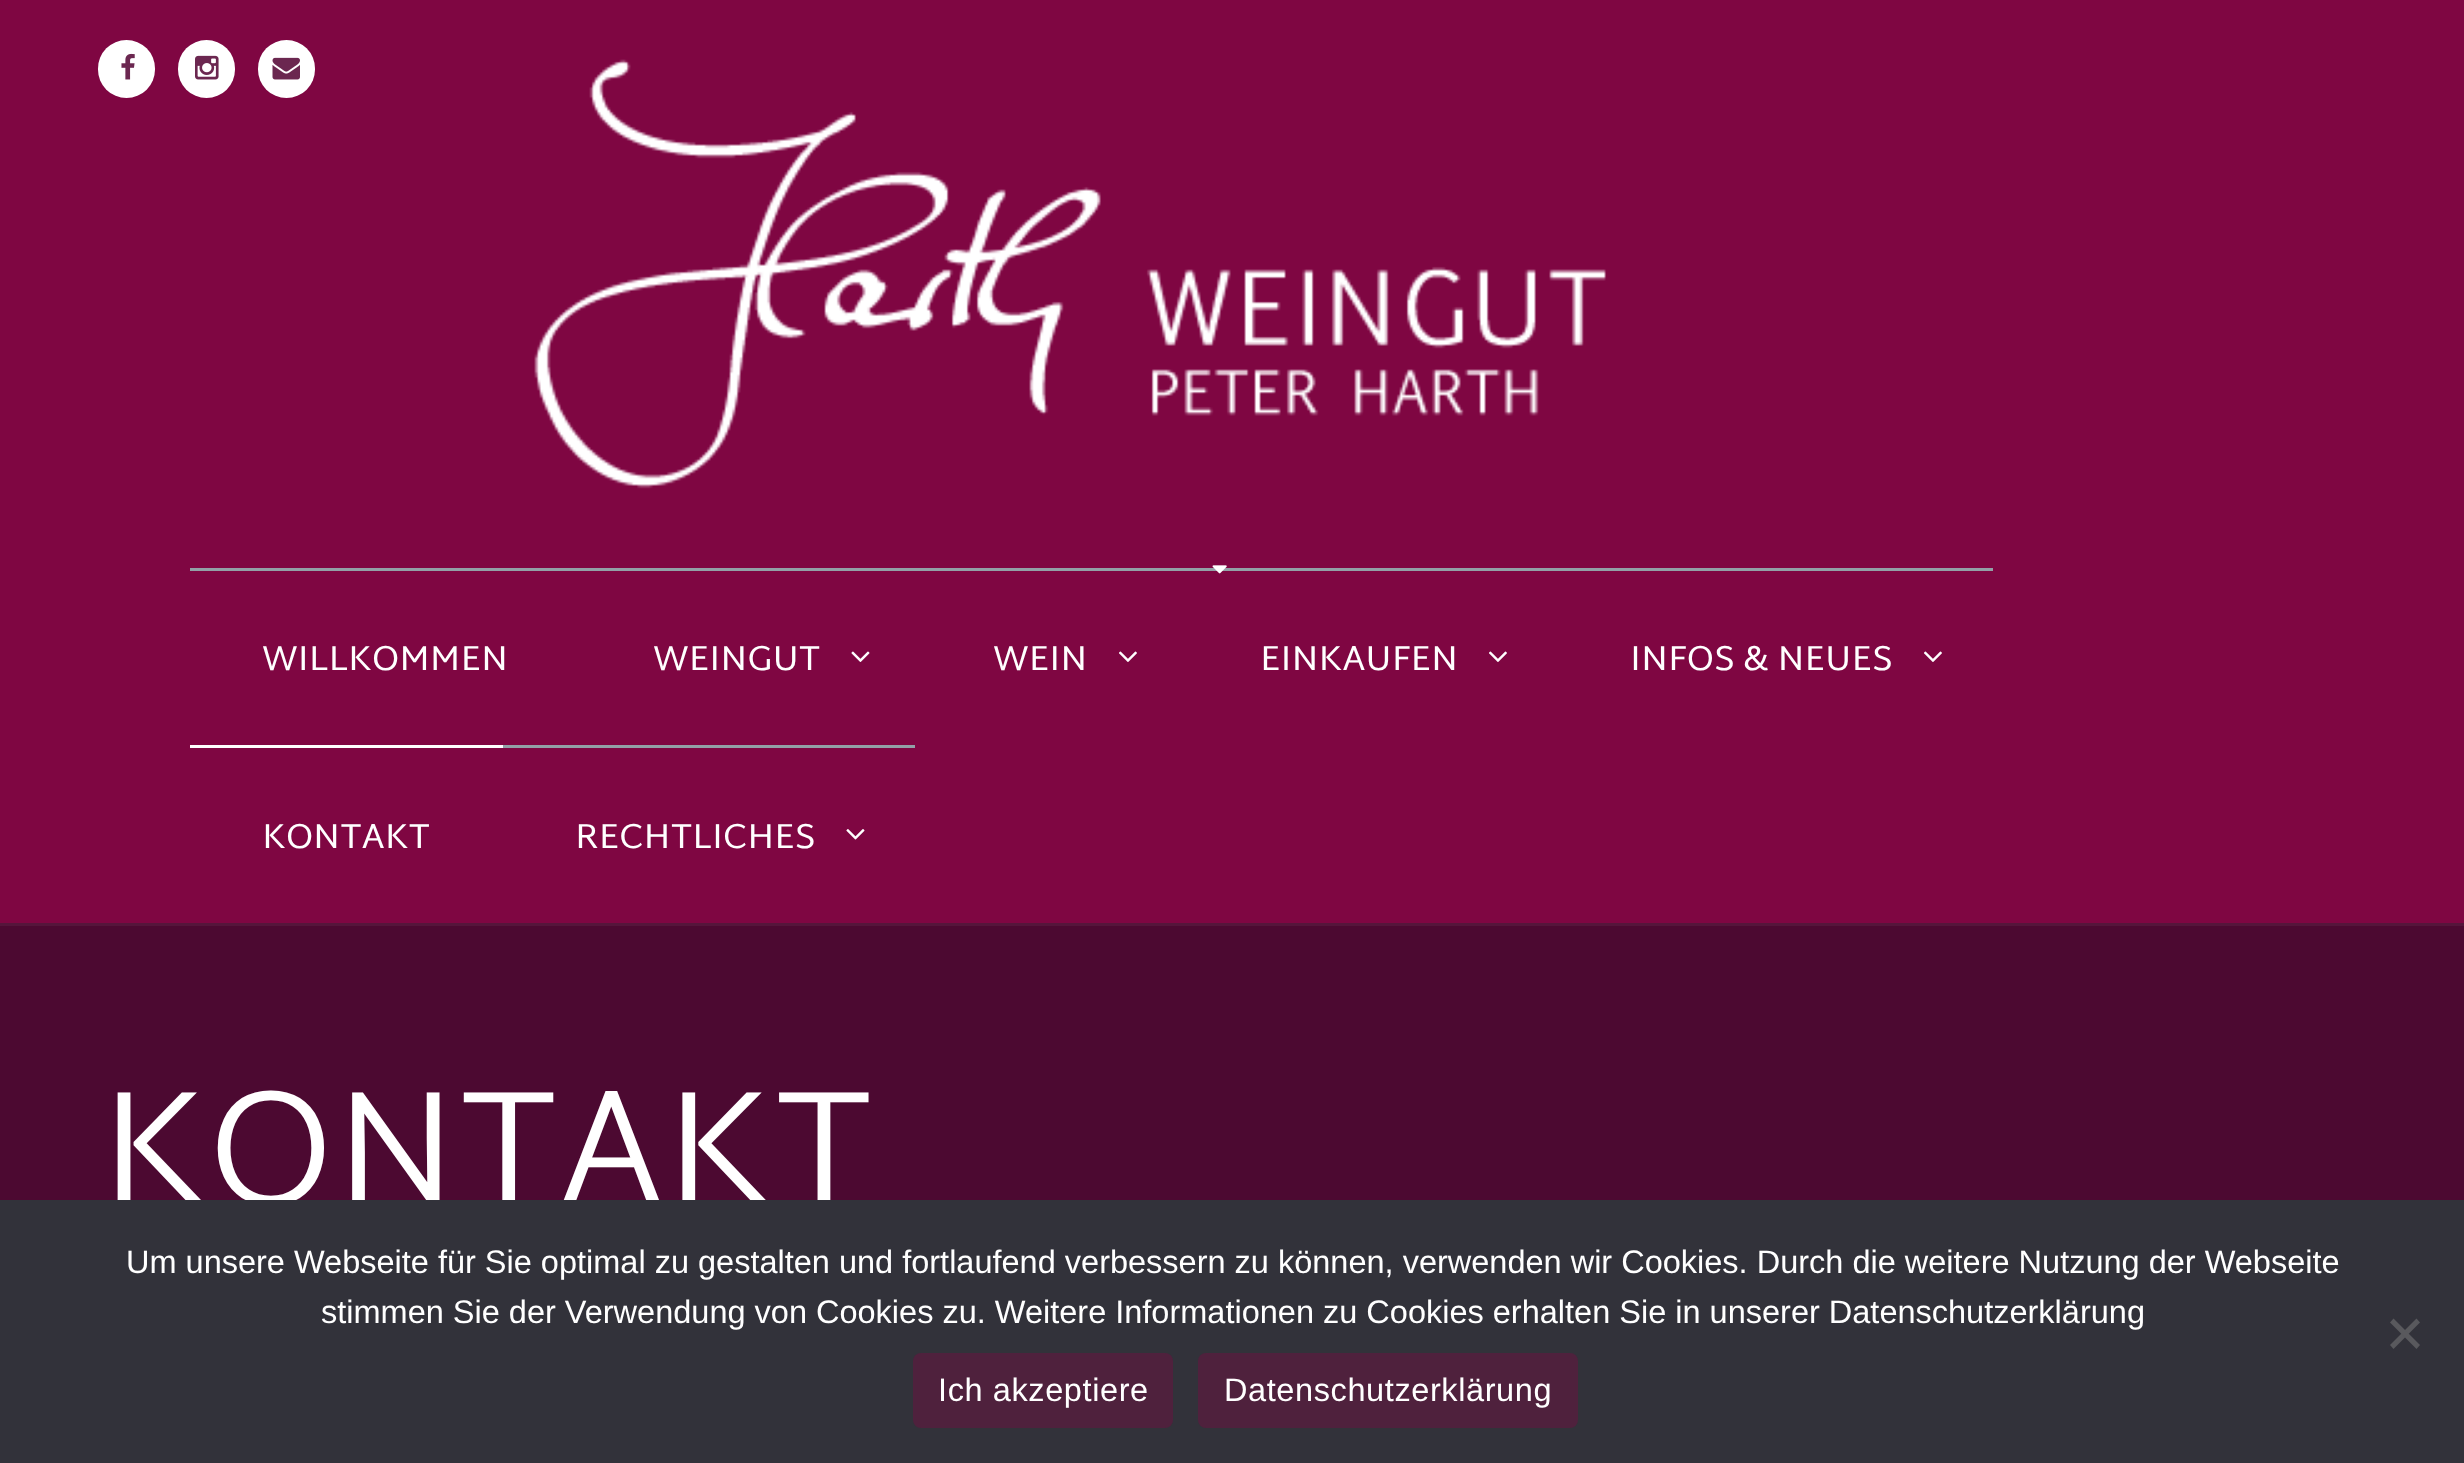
<svg xmlns="http://www.w3.org/2000/svg" xmlns:xlink="http://www.w3.org/1999/xlink" width="2464" height="1463" viewBox="0 0 2464 1463">
<style>
.cls-1{font:35px Martel Sans;fill:#ffffff}
.cls-2{font:300 162.5px Martel Sans;fill:#ffffff}
.cls-3{font:32.5px Liberation Sans;fill:#ffffff}
.cls-4{font:32.5px Liberation Sans;letter-spacing:0.6px;fill:#ffffff}
</style>
<rect width="100%" height="100%" fill="#7f0642"/>
<rect fill="#ffffff" x="98" y="40" width="57" height="58" rx="28.5"/>
<image xlink:href="image0.png" x="121" y="53" width="14" height="27"/>
<rect fill="#ffffff" x="178" y="40" width="57" height="58" rx="28.5"/>
<image xlink:href="image1.png" x="195" y="55" width="24" height="25"/>
<rect fill="#ffffff" x="258" y="40" width="57" height="58" rx="28.5"/>
<image xlink:href="image2.png" x="272" y="57" width="28" height="23"/>
<image xlink:href="image3.png" x="534" y="59" width="1072" height="430"/>
<rect fill="#92a1a7" x="190" y="568" width="1803" height="3"/>
<image xlink:href="image4.png" x="851" y="651" width="19" height="11"/>
<image xlink:href="image5.png" x="1119" y="651" width="18" height="11"/>
<image xlink:href="image5.png" x="1489" y="651" width="18" height="11"/>
<image xlink:href="image5.png" x="1924" y="651" width="18" height="11"/>
<rect fill="#ffffff" x="190" y="745" width="313" height="3"/>
<image xlink:href="image6.png" x="1212" y="565" width="15" height="9"/>
<rect fill="#92a1a7" x="503" y="745" width="412" height="3"/>
<image xlink:href="image7.png" x="846" y="829" width="19" height="11"/>
<rect fill="#4c0931" x="0" y="926" width="2464" height="274"/>
<rect fill="#55153b" x="0" y="923" width="2464" height="3"/>
<text class="cls-1" x="262" y="670">WILLKOMMEN</text>
<text class="cls-1" x="653" y="670">WEINGUT</text>
<text class="cls-1" x="993" y="670">WEIN</text>
<text class="cls-1" x="1260" y="670">EINKAUFEN</text>
<text class="cls-1" x="1630" y="670">INFOS &amp; NEUES</text>
<text class="cls-1" x="262" y="848">KONTAKT</text>
<text class="cls-1" x="575" y="848">RECHTLICHES</text>
<text class="cls-2" x="99" y="1203">KONTAKT</text>
<rect fill="#32323a" x="0" y="1200" width="2464" height="263"/>
<text class="cls-3" x="126" y="1273">Um unsere Webseite für Sie optimal zu gestalten und fortlaufend verbessern zu können, verwenden wir Cookies. Durch die weitere Nutzung der Webseite</text>
<text class="cls-3" x="321" y="1323">stimmen Sie der Verwendung von Cookies zu. Weitere Informationen zu Cookies erhalten Sie in unserer Datenschutzerklärung</text>
<path fill="#59595d" d="M2416.5 1318.5L2420 1322.5L2393.5 1349L2390 1345Z"/>
<path fill="#59595d" d="M2390 1322.5L2393.5 1318.5L2420 1345L2416.5 1349Z"/>
<rect fill="#4f213d" x="913" y="1353" width="260" height="75" rx="8"/>
<text class="cls-4" x="938" y="1401">Ich akzeptiere</text>
<rect fill="#4f213d" x="1198" y="1353" width="380" height="75" rx="8"/>
<text class="cls-4" x="1224" y="1401">Datenschutzerklärung</text>
</svg>
